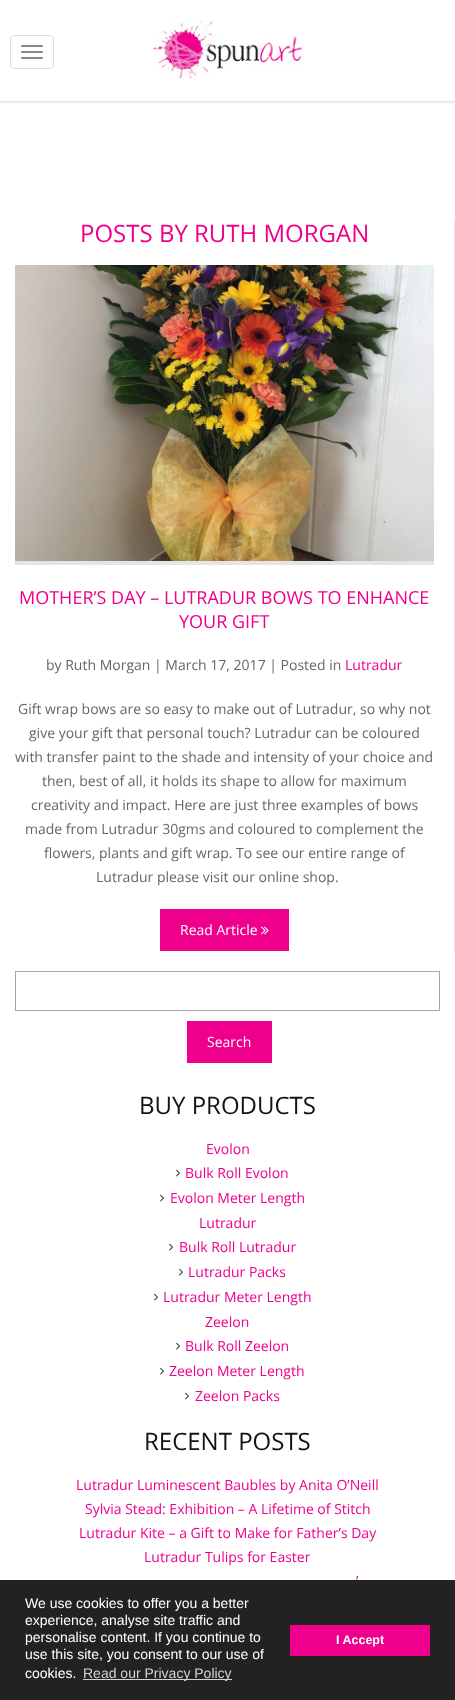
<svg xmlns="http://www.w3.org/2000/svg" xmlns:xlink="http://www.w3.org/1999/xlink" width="455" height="1700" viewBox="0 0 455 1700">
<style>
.cls-1{font:24px Open Sans;fill:#ef008c}
.cls-2{font:18px Open Sans;fill:#ef008c}
.cls-3{font:14px Open Sans;fill:#666666}
.cls-4{font:14px Open Sans;fill:#ef008c}
.cls-5{font:14px Open Sans;fill:#ffffff}
.cls-6{font:24px Open Sans;fill:#131313}
.cls-7{font:14px Liberation Sans;fill:#ffffff}
.cls-8{font:14px Liberation Sans;fill:#d3d3d3}
.cls-9{font:bold 12.5px Liberation Sans;fill:#ffffff}
</style>
<defs>
<clipPath id="clip1"><rect x="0" y="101" width="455" height="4"/></clipPath>
</defs>
<rect width="100%" height="100%" fill="#ffffff"/>
<g clip-path="url(#clip1)">
<rect fill="#d4d4d4" filter="blur(1.5px)" x="0" y="1" width="455" height="101"/>
</g>
<rect fill="none" stroke="#dddddd" x="10.5" y="35.5" width="43" height="33" rx="3.5"/>
<rect fill="#888888" x="21" y="45" width="22" height="2" rx="1"/>
<rect fill="#888888" x="21" y="51" width="22" height="2" rx="1"/>
<rect fill="#888888" x="21" y="57" width="22" height="2" rx="1"/>
<image xlink:href="image0.png" x="151" y="20" width="152" height="60"/>
<rect fill="#e5e5e5" x="454" y="221" width="1" height="730"/>
<image xlink:href="image1.png" x="15" y="265" width="419" height="296"/>
<rect fill="#e5e5e5" x="15" y="561" width="419" height="4"/>
<rect fill="#ef008c" x="160" y="909" width="129" height="42"/>
<image xlink:href="image2.png" x="261" y="926" width="8" height="9"/>
<rect fill="none" stroke="#a6a6a6" x="15.5" y="971.5" width="424" height="39"/>
<rect fill="#ef008c" x="187" y="1021" width="85" height="42"/>
<image xlink:href="image3.png" x="176" y="1169" width="4" height="8"/>
<image xlink:href="image3.png" x="160" y="1194" width="4" height="8"/>
<image xlink:href="image3.png" x="169" y="1243" width="4" height="8"/>
<image xlink:href="image3.png" x="179" y="1268" width="4" height="8"/>
<image xlink:href="image3.png" x="154" y="1293" width="4" height="8"/>
<image xlink:href="image3.png" x="176" y="1342" width="4" height="8"/>
<image xlink:href="image3.png" x="160" y="1367" width="4" height="8"/>
<image xlink:href="image3.png" x="185" y="1392" width="4" height="8"/>
<rect fill="#222222" x="0" y="1580" width="455" height="120"/>
<rect fill="#d3d3d3" x="83" y="1679" width="149" height="1"/>
<rect fill="#ef008c" x="290" y="1625" width="140" height="31"/>
<text class="cls-1" x="80" y="242">POSTS BY RUTH MORGAN</text>
<text class="cls-2" x="19" y="604">MOTHER’S DAY – LUTRADUR BOWS TO ENHANCE</text>
<text class="cls-2" x="179" y="628">YOUR GIFT</text>
<text class="cls-3" x="46" y="670">by Ruth Morgan | March 17, 2017 | Posted in</text>
<text class="cls-4" x="345" y="670">Lutradur</text>
<text class="cls-3" x="18" y="714">Gift wrap bows are so easy to make out of Lutradur, so why not</text>
<text class="cls-3" x="29" y="738">give your gift that personal touch? Lutradur can be coloured</text>
<text class="cls-3" x="15" y="762">with transfer paint to the shade and intensity of your choice and</text>
<text class="cls-3" x="42" y="786">then, best of all, it holds its shape to allow for maximum</text>
<text class="cls-3" x="31" y="810">creativity and impact. Here are just three examples of bows</text>
<text class="cls-3" x="25" y="834">made from Lutradur 30gms and coloured to complement the</text>
<text class="cls-3" x="44" y="858">flowers, plants and gift wrap. To see our entire range of</text>
<text class="cls-3" x="96" y="882">Lutradur please visit our online shop.</text>
<text class="cls-5" x="180" y="935">Read Article</text>
<text class="cls-5" x="207" y="1047">Search</text>
<text class="cls-6" x="139" y="1114">BUY PRODUCTS</text>
<text class="cls-4" x="206" y="1154">Evolon</text>
<text class="cls-4" x="185" y="1178">Bulk Roll Evolon</text>
<text class="cls-4" x="170" y="1203">Evolon Meter Length</text>
<text class="cls-4" x="199" y="1228">Lutradur</text>
<text class="cls-4" x="179" y="1252">Bulk Roll Lutradur</text>
<text class="cls-4" x="188" y="1277">Lutradur Packs</text>
<text class="cls-4" x="163" y="1302">Lutradur Meter Length</text>
<text class="cls-4" x="205" y="1327">Zeelon</text>
<text class="cls-4" x="185" y="1351">Bulk Roll Zeelon</text>
<text class="cls-4" x="169" y="1376">Zeelon Meter Length</text>
<text class="cls-4" x="195" y="1401">Zeelon Packs</text>
<text class="cls-6" x="144" y="1450">RECENT POSTS</text>
<text class="cls-4" x="76" y="1490">Lutradur Luminescent Baubles by Anita O’Neill</text>
<text class="cls-4" x="85" y="1514">Sylvia Stead: Exhibition – A Lifetime of Stitch</text>
<text class="cls-4" x="79" y="1538">Lutradur Kite – a Gift to Make for Father’s Day</text>
<text class="cls-4" x="144" y="1562">Lutradur Tulips for Easter</text>
<text class="cls-4" x="356" y="1586">’</text>
<text class="cls-7"><tspan x="25" y="1608">We use cookies to offer you a better</tspan><tspan x="25" y="1625">experience, analyse site traffic and</tspan><tspan x="25" y="1642">personalise content. If you continue to</tspan><tspan x="25" y="1659">use this site, you consent to our use of</tspan><tspan x="25" y="1678">cookies.</tspan></text>
<text class="cls-8" x="83" y="1678">Read our Privacy Policy</text>
<text class="cls-9" x="336" y="1644">I Accept</text>
</svg>
